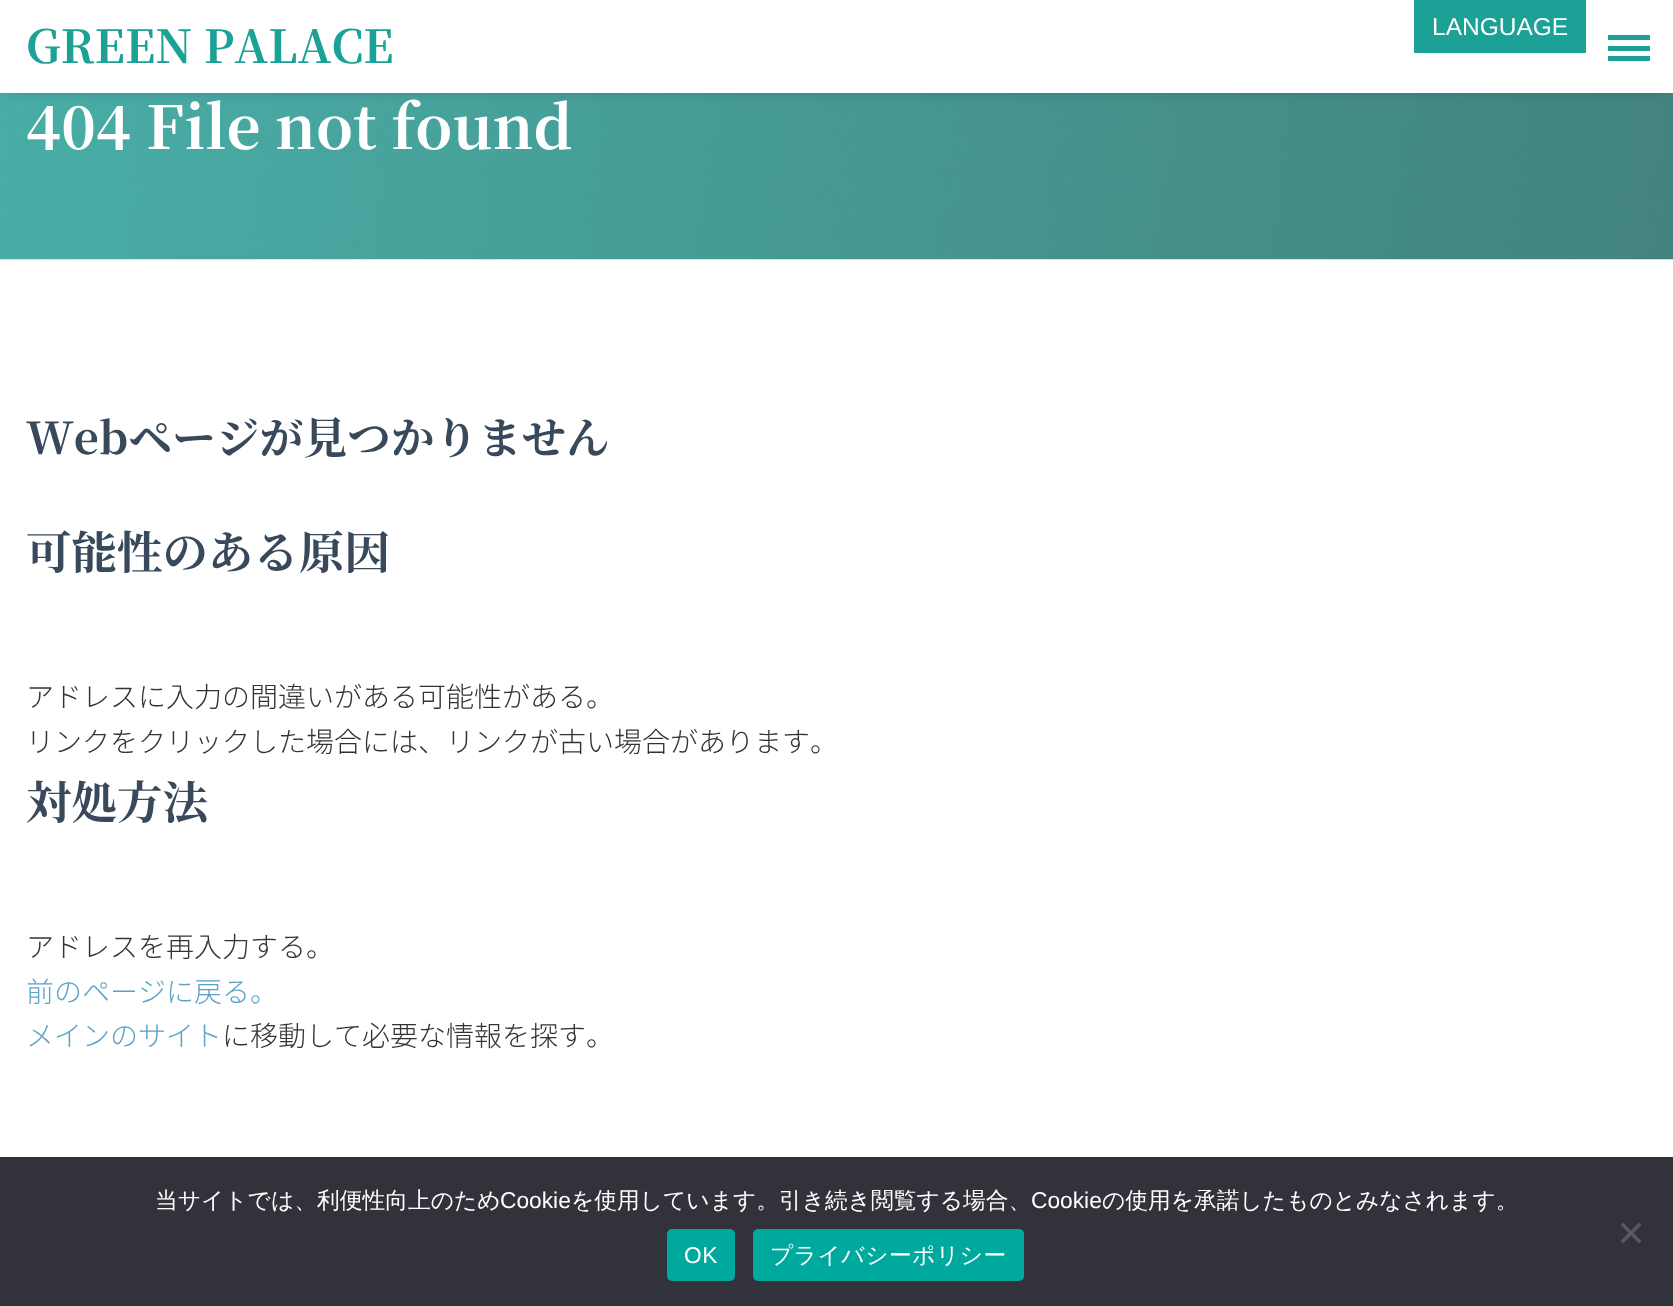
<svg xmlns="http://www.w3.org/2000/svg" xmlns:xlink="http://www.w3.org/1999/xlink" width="1673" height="1306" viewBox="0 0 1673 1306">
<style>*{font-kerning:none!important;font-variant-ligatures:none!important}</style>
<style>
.cls-1{font:bold 45.5px Noto Serif JP;fill:#1ba196}
.cls-2{font:24.5px Liberation Sans;fill:#ffffff}
.cls-3{font:bold 59.5px Noto Serif JP;fill:#ffffff}
.cls-4{font:bold 43.75px Noto Serif JP;fill:#38495b}
.cls-5{font:bold 45.5px Noto Serif JP;fill:#38495b}
.cls-6{font:300 28px Noto Sans JP;fill:#333333}
.cls-7{font:300 28px Noto Sans JP;fill:#5aa3c7}
.cls-8{font:500 22.75px WenQuanYi Zen Hei;fill:#ffffff}
.cls-9{font:22.75px Liberation Sans;fill:#ffffff}
.cls-10{font:22.75px Liberation Sans;letter-spacing:0.5px;fill:#ffffff}
.cls-11{font:500 22.75px WenQuanYi Zen Hei;letter-spacing:0.5px;fill:#ffffff}
</style>
<rect width="100%" height="100%" fill="#ffffff"/>
<image xlink:href="image0.png" x="0" y="93" width="1673" height="167"/>
<rect fill="#000000" fill-opacity="0.5" filter="blur(9px)" x="9" y="9" width="1655" height="75"/>
<rect fill="#ffffff" x="0" y="0" width="1673" height="93"/>
<rect fill="#1ba196" x="1608" y="35" width="42" height="5"/>
<rect fill="#1ba196" x="1608" y="46" width="42" height="5"/>
<rect fill="#1ba196" x="1608" y="56" width="42" height="5"/>
<rect fill="#1ba196" x="1414" y="0" width="172" height="53"/>
<rect fill="#32323a" x="0" y="1157" width="1673" height="149"/>
<path fill="#59595d" d="M1639 1222.5L1641.5 1225L1623 1243.5L1620.5 1241Z"/>
<path fill="#59595d" d="M1620.5 1225L1623 1222.5L1641.5 1241L1639 1243.5Z"/>
<rect fill="#00a99d" x="667" y="1229" width="68" height="52" rx="5"/>
<rect fill="#00a99d" x="753" y="1229" width="271" height="52" rx="5"/>
<text class="cls-1" x="26" y="63">GREEN PALACE</text>
<text class="cls-2" x="1432" y="35">LANGUAGE</text>
<text class="cls-3" x="26" y="149">404 File not found</text>
<text class="cls-4" x="26" y="454">Webページが見つかりません</text>
<text class="cls-5" x="26" y="569">可能性のある原因</text>
<text class="cls-6"><tspan x="26" y="707">アドレスに入力の間違いがある可能性がある。</tspan><tspan x="26" y="752">リンクをクリックした場合には、リンクが古い場合があります。</tspan></text>
<text class="cls-5" x="26" y="819">対処方法</text>
<text class="cls-6" x="26" y="957">アドレスを再入力する。</text>
<text class="cls-7"><tspan x="26" y="1002">前のページに戻る。</tspan><tspan x="26" y="1046">メインのサイト</tspan></text>
<text class="cls-6" x="222" y="1046">に移動して必要な情報を探す。</text>
<text class="cls-8" x="155" y="1208">当サイトでは、利便性向上のため</text>
<text class="cls-9" x="500" y="1208">Cookie</text>
<text class="cls-8" x="571" y="1208">を使用しています。引き続き閲覧する場合、</text>
<text class="cls-9" x="1031" y="1208">Cookie</text>
<text class="cls-8" x="1102" y="1208">の使用を承諾したものとみなされます。</text>
<text class="cls-10" x="684" y="1263">OK</text>
<text class="cls-11" x="770" y="1263">プライバシーポリシー</text>
</svg>
